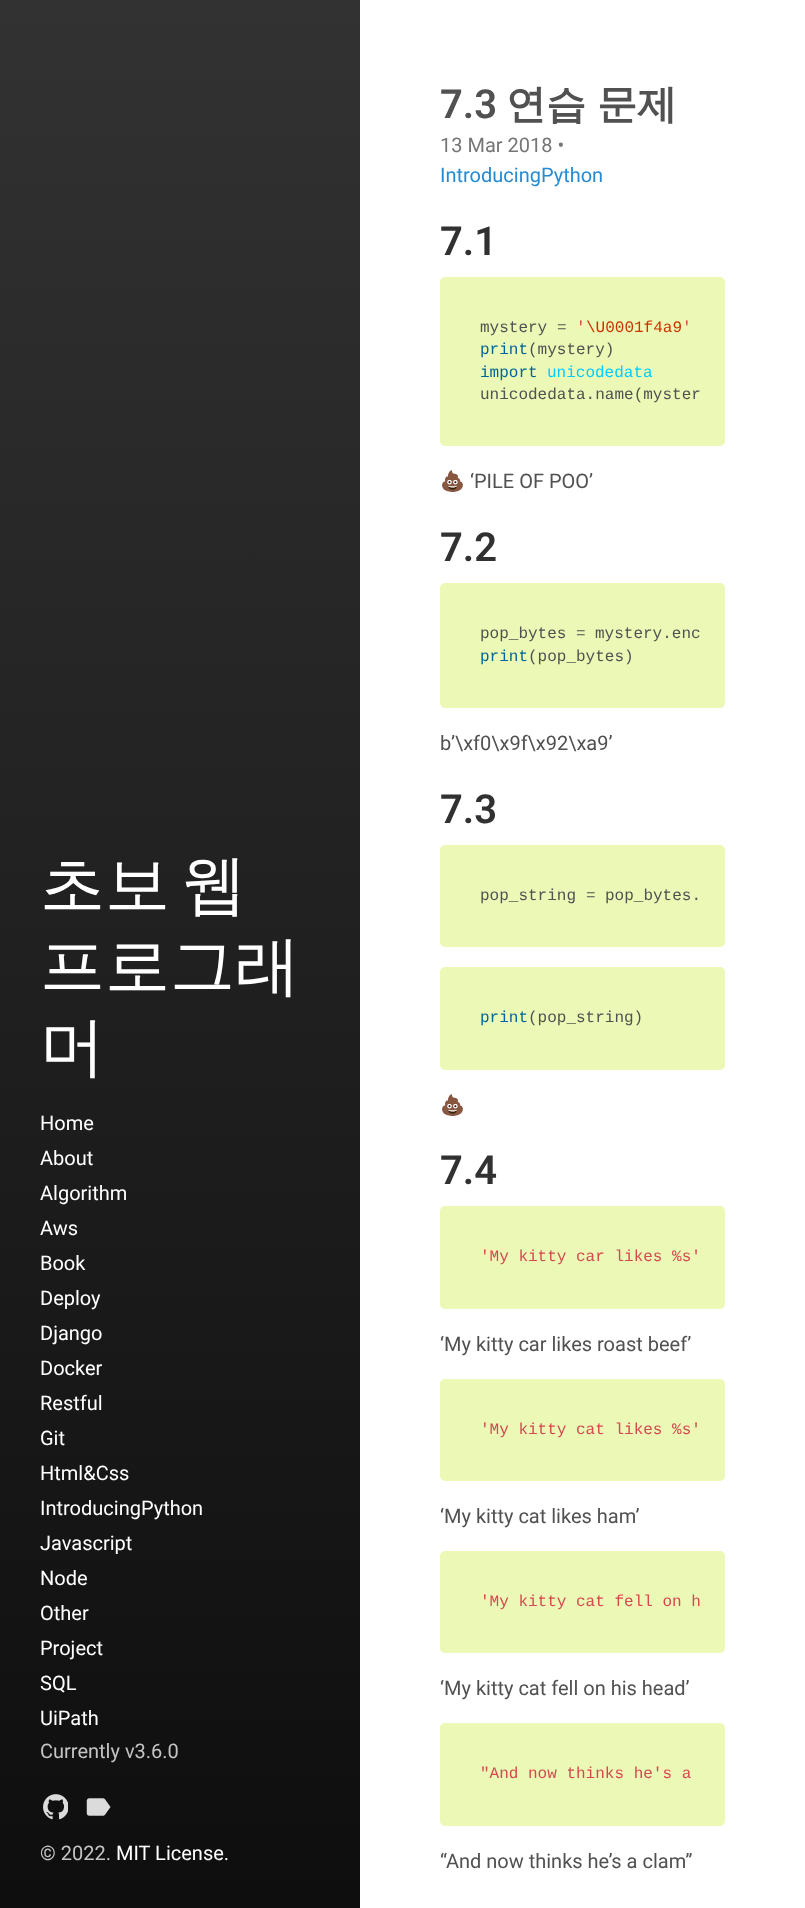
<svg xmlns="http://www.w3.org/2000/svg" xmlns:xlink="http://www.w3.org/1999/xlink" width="805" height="1908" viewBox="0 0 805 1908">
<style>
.cls-1{font:500 65px WenQuanYi Zen Hei;fill:#ffffff}
.cls-2{font:20px Roboto;fill:#ffffff}
.cls-3{font:20px Roboto;fill:#c4c4c4}
.cls-4{font:600 40px Roboto;fill:#515151}
.cls-5{font:bold 40px WenQuanYi Zen Hei;fill:#515151}
.cls-6{font:20px Roboto;fill:#767676}
.cls-7{font:20px Roboto;fill:#268bd2}
.cls-8{font:600 40px Roboto;fill:#313131}
.cls-9{font:16px Liberation Mono;fill:#515151}
.cls-10{font:16px Liberation Mono;fill:#d44950}
.cls-11{font:16px Liberation Mono;fill:#cc3300}
.cls-12{font:16px Liberation Mono;fill:#006699}
.cls-13{font:16px Liberation Mono;fill:#00ccff}
.cls-14{font:20px Noto Color Emoji;fill:#515151}
.cls-15{font:20px Roboto;fill:#515151}
</style>
<defs>
<linearGradient id="g1" gradientUnits="userSpaceOnUse" x1="402" y1="0" x2="403" y2="1908"><stop offset="0" stop-color="#323232"/><stop offset="1" stop-color="#0e0e0e"/></linearGradient>
</defs>
<rect width="100%" height="100%" fill="#ffffff"/>
<rect fill="url(#g1)" x="0" y="0" width="360" height="1908"/>
<image xlink:href="image0.png" x="43" y="1794" width="25" height="26"/>
<image xlink:href="image1.png" x="86" y="1798" width="25" height="18"/>
<rect fill="#ecf9b6" x="440" y="277" width="285" height="169" rx="5"/>
<rect fill="#ecf9b6" x="440" y="583" width="285" height="125" rx="5"/>
<rect fill="#ecf9b6" x="440" y="845" width="285" height="102" rx="5"/>
<rect fill="#ecf9b6" x="440" y="967" width="285" height="103" rx="5"/>
<rect fill="#ecf9b6" x="440" y="1206" width="285" height="103" rx="5"/>
<rect fill="#ecf9b6" x="440" y="1379" width="285" height="102" rx="5"/>
<rect fill="#ecf9b6" x="440" y="1551" width="285" height="102" rx="5"/>
<rect fill="#ecf9b6" x="440" y="1723" width="285" height="103" rx="5"/>
<text class="cls-1"><tspan x="40" y="907" word-spacing="-8">초보 웹</tspan><tspan x="40" y="988">프로그래</tspan><tspan x="40" y="1069">머</tspan></text>
<text class="cls-2"><tspan x="40" y="1130">Home</tspan><tspan x="40" y="1165">About</tspan><tspan x="40" y="1200">Algorithm</tspan><tspan x="40" y="1235">Aws</tspan><tspan x="40" y="1270">Book</tspan><tspan x="40" y="1305">Deploy</tspan><tspan x="40" y="1340">Django</tspan><tspan x="40" y="1375">Docker</tspan><tspan x="40" y="1410">Restful</tspan><tspan x="40" y="1445">Git</tspan><tspan x="40" y="1480">Html&amp;Css</tspan><tspan x="40" y="1515">IntroducingPython</tspan><tspan x="40" y="1550">Javascript</tspan><tspan x="40" y="1585">Node</tspan><tspan x="40" y="1620">Other</tspan><tspan x="40" y="1655">Project</tspan><tspan x="40" y="1690">SQL</tspan><tspan x="40" y="1725">UiPath</tspan></text>
<text class="cls-3" x="40" y="1758">Currently v3.6.0</text>
<text class="cls-3" x="40" y="1860">© 2022.</text>
<text class="cls-2" x="116" y="1860">MIT License.</text>
<text class="cls-4" x="440" y="118">7.3</text>
<text class="cls-5" x="506" y="118" word-spacing="-1">연습 문제</text>
<text class="cls-6" x="440" y="152">13 Mar 2018 •</text>
<text class="cls-7" x="440" y="182">IntroducingPython</text>
<text class="cls-8" x="440" y="255">7.1</text>
<text class="cls-9" x="480" y="332">mystery</text>
<text class="cls-9" x="557" y="332">=</text>
<text class="cls-10" x="576" y="332">'</text>
<text class="cls-11" x="586" y="332">\U0001f4a9</text>
<text class="cls-10" x="682" y="332">'</text>
<text class="cls-12" x="480" y="354">print</text>
<text class="cls-9" x="528" y="354">(mystery)</text>
<text class="cls-12" x="480" y="377">import</text>
<text class="cls-13" x="547" y="377">unicodedata</text>
<text class="cls-9" x="480" y="399">unicodedata.name(myster</text>
<text class="cls-14" x="440" y="488">💩</text>
<text class="cls-15" x="470" y="488">‘PILE OF POO’</text>
<text class="cls-8" x="440" y="561">7.2</text>
<text class="cls-9" x="480" y="638">pop_bytes</text>
<text class="cls-9" x="576" y="638">=</text>
<text class="cls-9" x="595" y="638">mystery.enc</text>
<text class="cls-12" x="480" y="661">print</text>
<text class="cls-9" x="528" y="661">(pop_bytes)</text>
<text class="cls-15" x="440" y="750">b’\xf0\x9f\x92\xa9’</text>
<text class="cls-8" x="440" y="823">7.3</text>
<text class="cls-9" x="480" y="900">pop_string</text>
<text class="cls-9" x="586" y="900">=</text>
<text class="cls-9" x="605" y="900">pop_bytes.</text>
<text class="cls-12" x="480" y="1022">print</text>
<text class="cls-9" x="528" y="1022">(pop_string)</text>
<text class="cls-14" x="440" y="1112">💩</text>
<text class="cls-8" x="440" y="1184">7.4</text>
<text class="cls-10" x="480" y="1261">'My kitty car likes %s'</text>
<text class="cls-15" x="440" y="1351">‘My kitty car likes roast beef’</text>
<text class="cls-10" x="480" y="1434">'My kitty cat likes %s'</text>
<text class="cls-15" x="440" y="1523">‘My kitty cat likes ham’</text>
<text class="cls-10" x="480" y="1606">'My kitty cat fell on h</text>
<text class="cls-15" x="440" y="1695">‘My kitty cat fell on his head’</text>
<text class="cls-10" x="480" y="1778">"And now thinks he's a</text>
<text class="cls-15" x="440" y="1868">“And now thinks he’s a clam”</text>
</svg>
